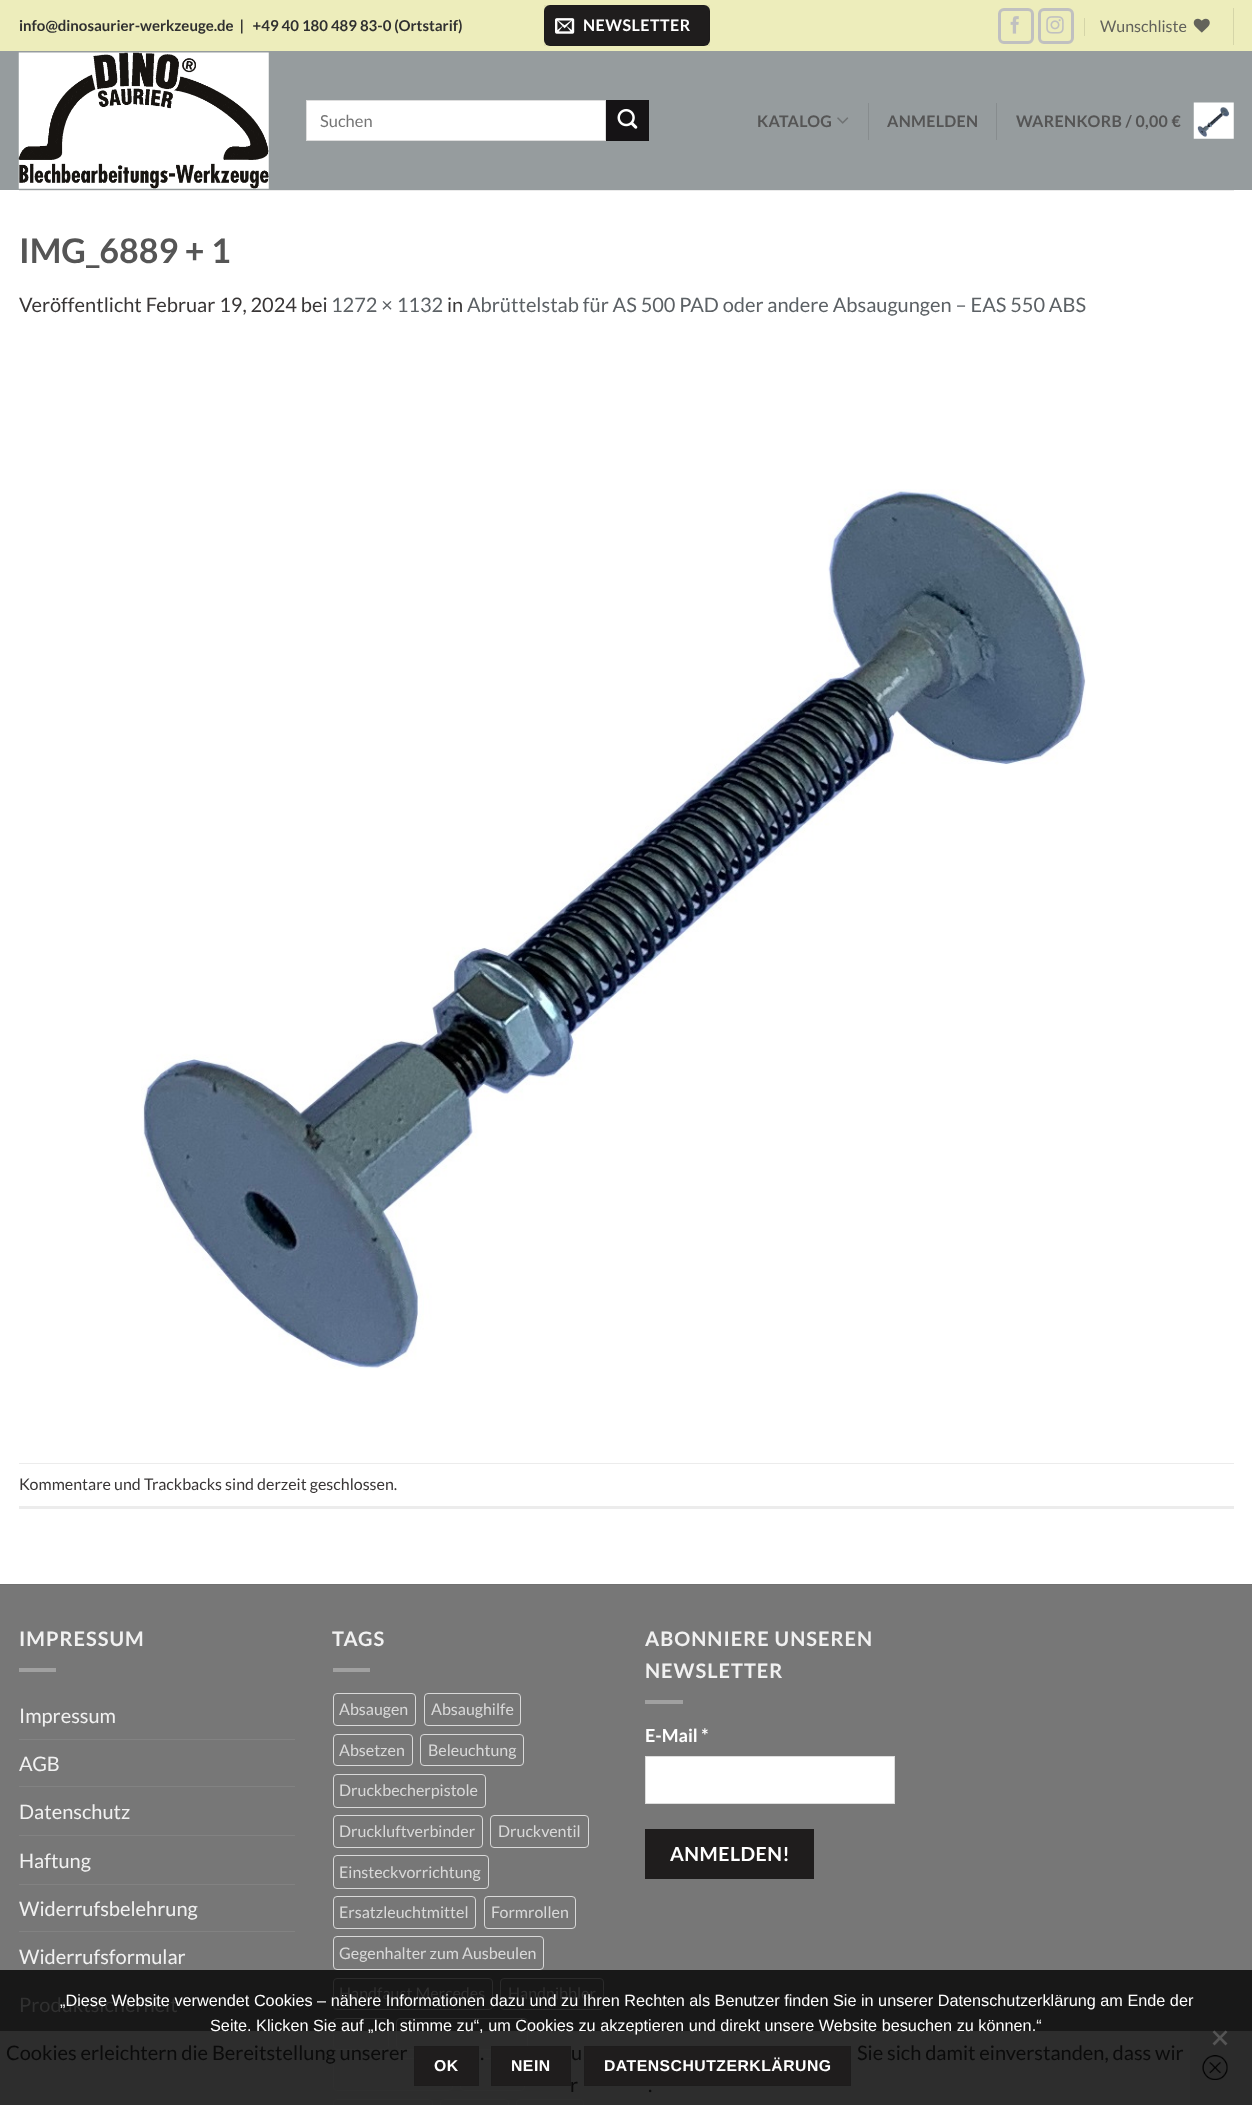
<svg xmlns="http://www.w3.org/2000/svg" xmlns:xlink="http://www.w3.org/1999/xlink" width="1252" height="2105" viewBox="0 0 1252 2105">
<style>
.cls-1{font:bold 15px Lato;fill:#303030}
.cls-2{font:bold 16px Lato;letter-spacing:0.5px;fill:#ffffff}
.cls-3{font:16px Lato;fill:#62625b}
.cls-4{font:16.5px Lato;fill:#757575}
.cls-5{font:bold 16px Lato;letter-spacing:0.3px;fill:#555555}
.cls-6{font:bold 34px Lato;fill:#555555}
.cls-7{font:20px Lato;fill:#393636}
.cls-8{font:20px Lato;fill:#5c6165}
.cls-9{font:16px Lato;fill:#393636}
.cls-10{font:bold 20px Lato;letter-spacing:1px;fill:#f1f1f1}
.cls-11{font:20px Lato;fill:#f1f1f1}
.cls-12{font:20px Lato;fill:#303030}
.cls-13{font:16px Lato;fill:#d9d9d9}
.cls-14{font:16px Lato;fill:#303030}
.cls-15{font:bold 18px Lato;fill:#ffffff}
.cls-16{font:bold 19.5px Lato;letter-spacing:0.5px;fill:#ffffff}
.cls-17{font:16.25px Liberation Sans;fill:#ffffff}
.cls-18{font:bold 15.75px Liberation Sans;letter-spacing:0.5px;fill:#ffffff}
.cls-19{font:20px Lato;fill:#0b0b0b}
</style>
<rect width="100%" height="100%" fill="#ffffff"/>
<rect fill="#ededbb" x="0" y="0" width="1252" height="51"/>
<rect fill="#1f1d1d" x="544" y="5" width="166" height="41" rx="6"/>
<rect fill="none" stroke="#000000" stroke-opacity="0.05" x="544.5" y="5.5" width="165" height="40"/>
<image xlink:href="image0.png" x="555" y="18" width="20" height="16"/>
<rect fill="none" stroke="#c0c0c0" stroke-width="3" x="999.5" y="9.5" width="33" height="33" rx="4.5"/>
<image xlink:href="image1.png" x="1010" y="16" width="9" height="18"/>
<rect fill="none" stroke="#c0c0c0" stroke-width="3" x="1039.5" y="9.5" width="33" height="33" rx="4.5"/>
<image xlink:href="image2.png" x="1046" y="16" width="18" height="18"/>
<rect fill="#d5d5a8" x="1084" y="18" width="1" height="18"/>
<image xlink:href="image3.png" x="1193" y="18" width="17" height="15"/>
<rect fill="#d5d5a8" x="1233" y="8" width="1" height="37"/>
<rect fill="#969c9e" x="0" y="51" width="1252" height="139"/>
<image xlink:href="image4.png" x="18" y="52" width="251" height="137"/>
<rect fill="#ffffff" stroke="#dddddd" x="306.5" y="100.5" width="299" height="40"/>
<rect fill="#151315" x="606" y="100" width="43" height="41"/>
<image xlink:href="image5.png" x="617" y="108" width="21" height="21"/>
<image xlink:href="image6.png" x="837" y="117" width="12" height="7"/>
<rect fill="#878c8e" x="868" y="103" width="1" height="37"/>
<rect fill="#878c8e" x="996" y="103" width="1" height="37"/>
<image xlink:href="image7.png" x="1193" y="102" width="41" height="37"/>
<rect fill="#ebebeb" x="19" y="190" width="1215" height="1"/>
<image xlink:href="image8.png" x="141" y="489" width="945" height="880"/>
<rect fill="#ececec" x="19" y="1463" width="1215" height="1"/>
<rect fill="#ececec" x="19" y="1506" width="1215" height="3"/>
<rect fill="#777777" x="0" y="1585" width="1252" height="385"/>
<rect fill="#181818" x="0" y="1970" width="1252" height="135"/>
<rect fill="#717171" x="0" y="1584" width="1252" height="1"/>
<rect fill="#a0a0a0" x="19" y="1668" width="37" height="4"/>
<rect fill="#828282" x="19" y="1739" width="276" height="1"/>
<rect fill="#828282" x="19" y="1786" width="276" height="1"/>
<rect fill="#828282" x="19" y="1835" width="276" height="1"/>
<rect fill="#828282" x="19" y="1884" width="276" height="1"/>
<rect fill="#828282" x="19" y="1931" width="276" height="1"/>
<rect fill="#a0a0a0" x="333" y="1668" width="37" height="4"/>
<rect fill="none" stroke="#d9d9d9" x="333.5" y="1693.5" width="82" height="32" rx="3.5"/>
<rect fill="none" stroke="#d9d9d9" x="424.5" y="1693.5" width="96" height="32" rx="3.5"/>
<rect fill="none" stroke="#d9d9d9" x="333.5" y="1734.5" width="79" height="31" rx="3.5"/>
<rect fill="none" stroke="#d9d9d9" x="420.5" y="1734.5" width="103" height="31" rx="3.5"/>
<rect fill="none" stroke="#d9d9d9" x="333.5" y="1774.5" width="152" height="33" rx="3.5"/>
<rect fill="none" stroke="#d9d9d9" x="333.5" y="1815.5" width="149" height="32" rx="3.5"/>
<rect fill="none" stroke="#d9d9d9" x="490.5" y="1815.5" width="98" height="32" rx="3.5"/>
<rect fill="none" stroke="#d9d9d9" x="333.5" y="1855.5" width="155" height="33" rx="3.5"/>
<rect fill="none" stroke="#d9d9d9" x="333.5" y="1896.5" width="142" height="32" rx="3.5"/>
<rect fill="none" stroke="#d9d9d9" x="484.5" y="1896.5" width="91" height="32" rx="3.5"/>
<rect fill="none" stroke="#d9d9d9" x="333.5" y="1936.5" width="210" height="33" rx="3.5"/>
<rect fill="none" stroke="#2b2b2b" x="333.5" y="1978.5" width="159" height="31" rx="3.5"/>
<rect fill="none" stroke="#2b2b2b" x="500.5" y="1978.5" width="103" height="31" rx="3.5"/>
<rect fill="none" stroke="#2b2b2b" x="333.5" y="2018.5" width="55" height="31" rx="3.5"/>
<rect fill="none" stroke="#2b2b2b" x="396.5" y="2018.5" width="131" height="31" rx="3.5"/>
<rect fill="none" stroke="#2b2b2b" x="333.5" y="2058.5" width="119" height="32" rx="3.5"/>
<rect fill="none" stroke="#2b2b2b" x="460.5" y="2058.5" width="64" height="32" rx="3.5"/>
<rect fill="none" stroke="#2b2b2b" x="333.5" y="2099.5" width="99" height="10" rx="3.5"/>
<rect fill="none" stroke="#2b2b2b" x="440.5" y="2099.5" width="68" height="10" rx="3.5"/>
<rect fill="none" stroke="#2b2b2b" x="516.5" y="2099.5" width="67" height="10" rx="3.5"/>
<rect fill="#a0a0a0" x="645" y="1700" width="38" height="4"/>
<rect fill="#ffffff" stroke="#dddddd" x="645.5" y="1756.5" width="249" height="47"/>
<rect fill="#1f1d1d" x="645" y="1829" width="169" height="50"/>
<rect fill="#2b2b2b" x="1190" y="2031" width="62" height="74"/>
<path fill="#555555" d="M1225.5 2030.5L1227.5 2032L1214.5 2045.5L1212.5 2043.5Z"/>
<path fill="#555555" d="M1212.5 2032L1214.5 2030.5L1227.5 2043.5L1225.5 2045.5Z"/>
<rect fill="#303030" fill-opacity="0.9" x="0" y="2031" width="1190" height="74"/>
<rect fill="#1f1d1d" stroke="#1d1c1c" x="414.5" y="2046.5" width="64" height="39"/>
<rect fill="#1f1d1d" stroke="#1d1c1c" x="491.5" y="2046.5" width="79" height="39"/>
<rect fill="#1f1d1d" stroke="#1d1c1c" x="584.5" y="2046.5" width="266" height="39"/>
<image xlink:href="image9.png" x="1202" y="2055" width="26" height="25"/>
<text class="cls-1" xml:space="preserve" x="19" y="31">info@dinosaurier-werkzeuge.de  |   +49 40 180 489 83-0 (Ortstarif)</text>
<text class="cls-2" x="583" y="31">NEWSLETTER</text>
<text class="cls-3" x="1100" y="32">Wunschliste</text>
<text class="cls-4" x="320" y="127">Suchen</text>
<text class="cls-5" x="757" y="127">KATALOG</text>
<text class="cls-5" x="887" y="127">ANMELDEN</text>
<text class="cls-5" x="1016" y="127">WARENKORB / 0,00 €</text>
<text class="cls-6" x="19" y="263">IMG_6889 + 1</text>
<text class="cls-7" x="19" y="312">Veröffentlicht Februar 19, 2024 bei</text>
<text class="cls-8" x="331" y="312">1272 × 1132</text>
<text class="cls-7" x="447" y="312">in</text>
<text class="cls-8" x="467" y="312">Abrüttelstab für AS 500 PAD oder andere Absaugungen – EAS 550 ABS</text>
<text class="cls-9" x="19" y="1490">Kommentare und Trackbacks sind derzeit geschlossen.</text>
<text class="cls-10" x="19" y="1646">IMPRESSUM</text>
<text class="cls-11" x="19" y="1723">Impressum</text>
<text class="cls-11" x="19" y="1771">AGB</text>
<text class="cls-11" x="19" y="1819">Datenschutz</text>
<text class="cls-11" x="19" y="1868">Haftung</text>
<text class="cls-11" x="19" y="1916">Widerrufsbelehrung</text>
<text class="cls-11" x="19" y="1964">Widerrufsformular</text>
<text class="cls-12" x="19" y="2012">Produktsicherheit</text>
<text class="cls-10" x="332" y="1646">TAGS</text>
<text class="cls-13" x="339" y="1715">Absaugen</text>
<text class="cls-13" x="431" y="1715">Absaughilfe</text>
<text class="cls-13" x="339" y="1756">Absetzen</text>
<text class="cls-13" x="428" y="1756">Beleuchtung</text>
<text class="cls-13" x="339" y="1796">Druckbecherpistole</text>
<text class="cls-13" x="339" y="1837">Druckluftverbinder</text>
<text class="cls-13" x="498" y="1837">Druckventil</text>
<text class="cls-13" x="339" y="1878">Einsteckvorrichtung</text>
<text class="cls-13" x="339" y="1918">Ersatzleuchtmittel</text>
<text class="cls-13" x="491" y="1918">Formrollen</text>
<text class="cls-13" x="339" y="1959">Gegenhalter zum Ausbeulen</text>
<text class="cls-14" x="339" y="1999">Handfaust Mercedes</text>
<text class="cls-14" x="508" y="1999">Handnibbler</text>
<text class="cls-10"><tspan x="645" y="1646">ABONNIERE UNSEREN</tspan><tspan x="645" y="1678">NEWSLETTER</tspan></text>
<text class="cls-15" x="645" y="1742">E-Mail *</text>
<text class="cls-16" x="670" y="1861">ANMELDEN!</text>
<text class="cls-17" x="60" y="2006">„Diese Website verwendet Cookies – nähere Informationen dazu und zu Ihren Rechten als Benutzer finden Sie in unserer Datenschutzerklärung am Ende der</text>
<text class="cls-17" x="210" y="2031">Seite. Klicken Sie auf „Ich stimme zu“, um Cookies zu akzeptieren und direkt unsere Website besuchen zu können.“</text>
<text class="cls-18" x="434" y="2071">OK</text>
<text class="cls-18" x="511" y="2071">NEIN</text>
<text class="cls-18" x="604" y="2071">DATENSCHUTZERKLÄRUNG</text>
<text class="cls-19" x="6" y="2060">Cookies erleichtern die Bereitstellung unserer</text>
<text class="cls-19" x="480" y="2060">.</text>
<text class="cls-19" x="571" y="2060">u</text>
<text class="cls-19" x="857" y="2060">Sie sich damit einverstanden, dass wir</text>
<text class="cls-19" x="570" y="2092">r</text>
<text class="cls-19" x="648" y="2092">.</text>
</svg>
